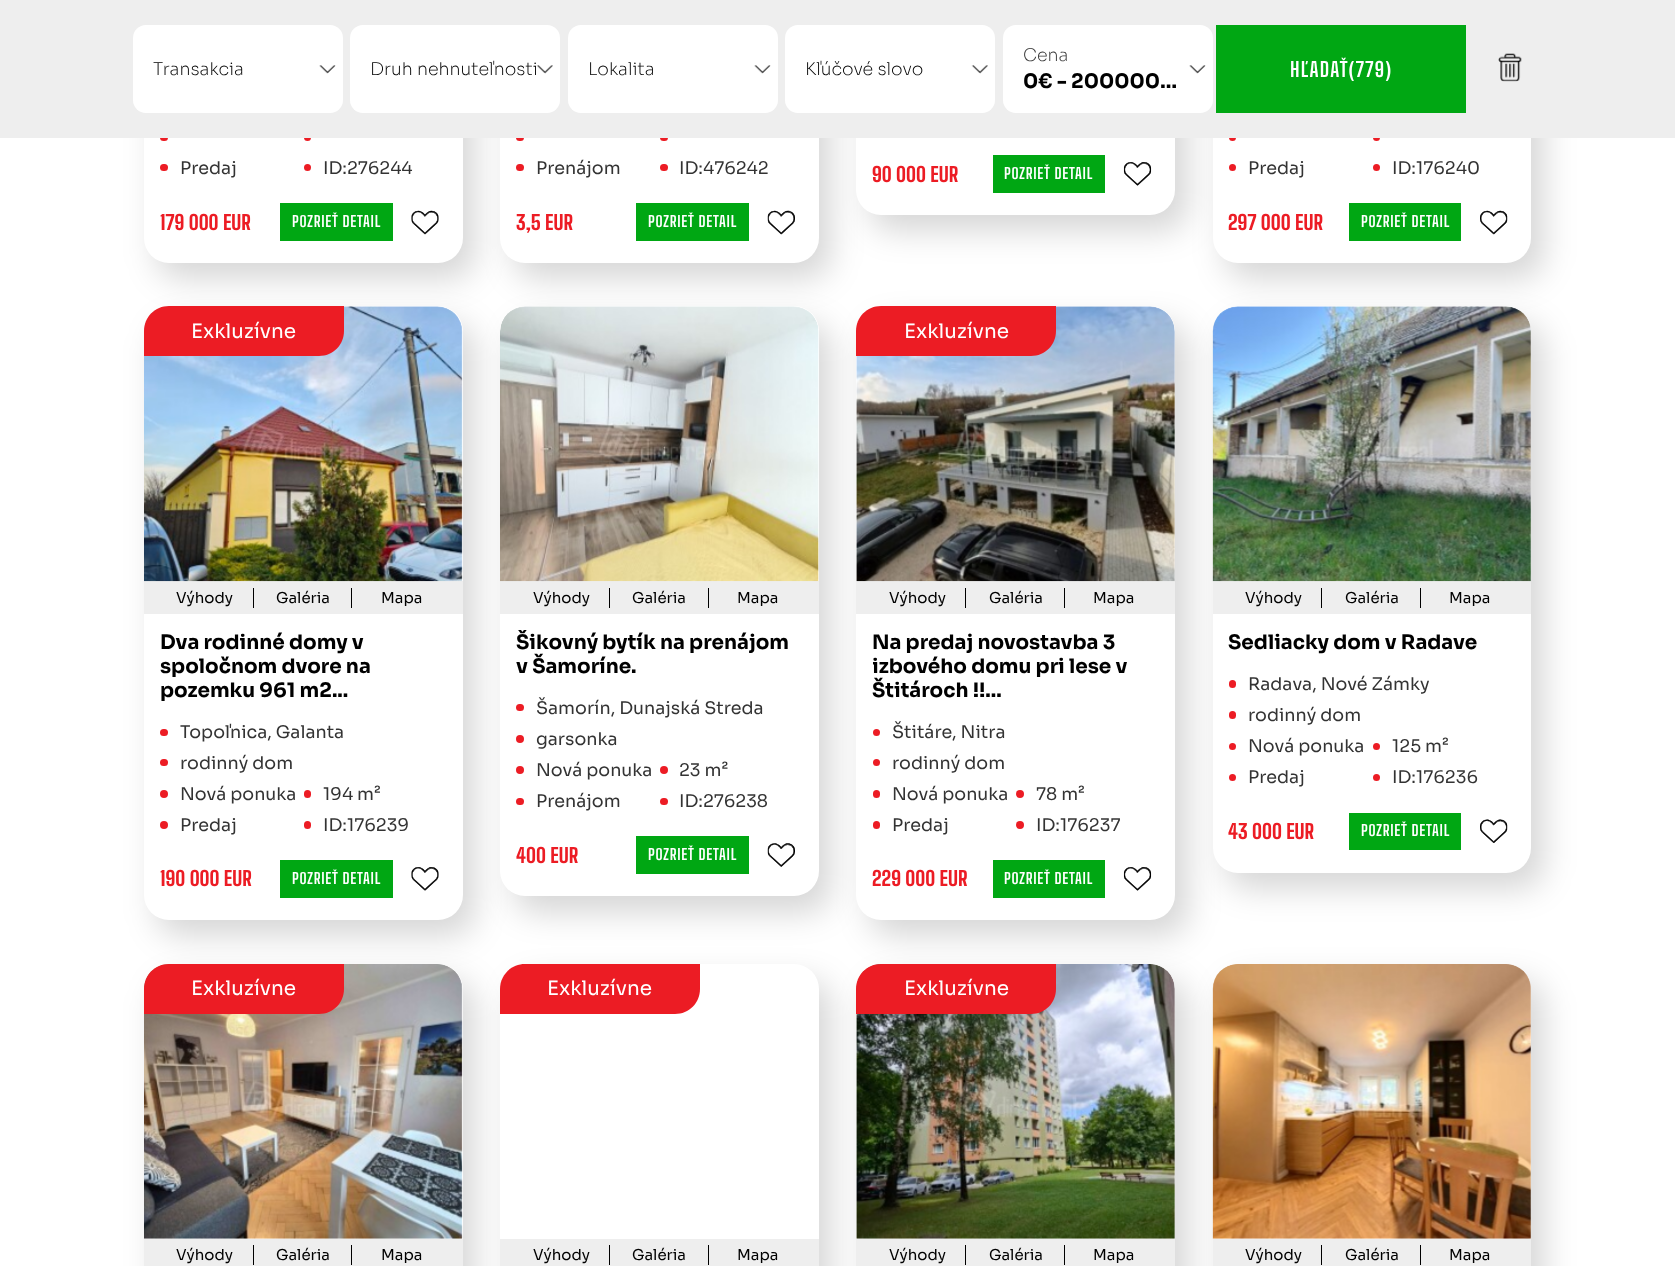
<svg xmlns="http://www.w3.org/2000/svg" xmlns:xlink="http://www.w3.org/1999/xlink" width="1675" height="1266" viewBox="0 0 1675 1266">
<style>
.cls-1{font:200 17.5px Sora;fill:#000000}
.cls-2{font:200 17.5px Sora;fill:#333333}
.cls-3{font:bold 20px Sora;fill:#000000}
.cls-4{font:bold 20px Big Shoulders Text;letter-spacing:1.25px;fill:#ffffff}
.cls-5{font:17.5px Sora;fill:#333333}
.cls-6{font:800 20px Big Shoulders Text;fill:#ec1c24}
.cls-7{font:bold 15px Big Shoulders Text;letter-spacing:0.75px;fill:#ffffff}
.cls-8{font:20px Sora;fill:#ffffff}
.cls-9{font:15px Sora;fill:#000000}
</style>
<defs>
<clipPath id="clip1"><rect x="516" y="630" width="277" height="49"/></clipPath>
<clipPath id="clip2"><rect x="873" y="630" width="276" height="73"/></clipPath>
</defs>
<rect width="100%" height="100%" fill="#ffffff"/>
<rect fill="#000000" fill-opacity="0.16" filter="blur(16px)" x="156" y="-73" width="319" height="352" rx="25"/>
<rect fill="#ffffff" x="144" y="-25" width="319" height="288" rx="25"/>
<rect fill="#ec1c24" x="160" y="134" width="8" height="7" rx="3.5"/>
<circle fill="#ec1c24" cx="307.5" cy="137.5" r="3.5"/>
<rect fill="#000000" fill-opacity="0.16" filter="blur(16px)" x="513" y="-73" width="318" height="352" rx="25"/>
<rect fill="#ffffff" x="500" y="-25" width="319" height="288" rx="25"/>
<rect fill="#ec1c24" x="516" y="134" width="8" height="7" rx="3.5"/>
<rect fill="#ec1c24" x="660" y="134" width="8" height="7" rx="3.5"/>
<rect fill="#000000" fill-opacity="0.16" filter="blur(16px)" x="869" y="-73" width="319" height="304" rx="25"/>
<rect fill="#ffffff" x="856" y="-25" width="319" height="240" rx="25"/>
<rect fill="#000000" fill-opacity="0.16" filter="blur(16px)" x="1225" y="-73" width="319" height="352" rx="25"/>
<rect fill="#ffffff" x="1213" y="-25" width="318" height="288" rx="25"/>
<circle fill="#ec1c24" cx="1232.5" cy="137.5" r="3.5"/>
<circle fill="#ec1c24" cx="1376.5" cy="137.5" r="3.5"/>
<rect fill="#eeeeee" x="0" y="0" width="1675" height="138"/>
<rect fill="#ffffff" x="133" y="25" width="210" height="88" rx="13"/>
<image xlink:href="image0.png" x="319" y="65" width="17" height="9"/>
<rect fill="#ffffff" x="350" y="25" width="210" height="88" rx="13"/>
<image xlink:href="image1.png" x="536" y="65" width="17" height="9"/>
<rect fill="#ffffff" x="568" y="25" width="210" height="88" rx="13"/>
<image xlink:href="image0.png" x="754" y="65" width="17" height="9"/>
<rect fill="#ffffff" x="785" y="25" width="210" height="88" rx="13"/>
<image xlink:href="image1.png" x="971" y="65" width="17" height="9"/>
<rect fill="#ffffff" x="1003" y="25" width="210" height="88" rx="13"/>
<image xlink:href="image0.png" x="1189" y="65" width="17" height="9"/>
<rect fill="#00a713" x="1216" y="25" width="250" height="88"/>
<image xlink:href="image2.png" x="1498" y="53" width="24" height="29"/>
<rect fill="#ec1c24" x="160" y="164" width="8" height="7" rx="3.5"/>
<circle fill="#ec1c24" cx="307.5" cy="167.5" r="3.5"/>
<rect fill="#00a713" x="280" y="203" width="113" height="38"/>
<image xlink:href="image3.png" x="411" y="210" width="28" height="25"/>
<rect fill="#ec1c24" x="516" y="164" width="8" height="7" rx="3.5"/>
<rect fill="#ec1c24" x="660" y="164" width="8" height="7" rx="3.5"/>
<rect fill="#00a713" x="636" y="203" width="113" height="38"/>
<image xlink:href="image4.png" x="767" y="210" width="28" height="25"/>
<rect fill="#00a713" x="993" y="155" width="112" height="38"/>
<image xlink:href="image5.png" x="1123" y="162" width="29" height="24"/>
<circle fill="#ec1c24" cx="1232.5" cy="167.5" r="3.5"/>
<circle fill="#ec1c24" cx="1376.5" cy="167.5" r="3.5"/>
<rect fill="#00a713" x="1349" y="203" width="112" height="38"/>
<image xlink:href="image6.png" x="1480" y="210" width="28" height="25"/>
<rect fill="#000000" fill-opacity="0.16" filter="blur(16px)" x="156" y="323" width="319" height="613" rx="25"/>
<rect fill="#ffffff" x="144" y="306" width="319" height="614" rx="25"/>
<rect fill="#eeeeee" x="144" y="581" width="319" height="33"/>
<image xlink:href="image7.png" x="144" y="306" width="319" height="276"/>
<path fill="#ec1c24" d="M169 306H344V331C344 345 333 356 319 356H144V331C144 317 155 306 169 306Z"/>
<rect fill="#000000" x="253" y="588" width="1" height="20"/>
<rect fill="#000000" x="351" y="588" width="1" height="20"/>
<rect fill="#ec1c24" x="160" y="729" width="8" height="7" rx="3.5"/>
<rect fill="#ec1c24" x="160" y="759" width="8" height="7" rx="3.5"/>
<circle fill="#ec1c24" cx="164" cy="794" r="4"/>
<rect fill="#ec1c24" x="304" y="790" width="7" height="8" rx="3.5"/>
<circle fill="#ec1c24" cx="164" cy="825" r="4"/>
<rect fill="#ec1c24" x="304" y="821" width="7" height="8" rx="3.5"/>
<rect fill="#00a713" x="280" y="860" width="113" height="38"/>
<image xlink:href="image8.png" x="411" y="867" width="28" height="24"/>
<rect fill="#000000" fill-opacity="0.16" filter="blur(16px)" x="513" y="323" width="318" height="590" rx="25"/>
<rect fill="#ffffff" x="500" y="306" width="319" height="590" rx="25"/>
<rect fill="#eeeeee" x="500" y="581" width="319" height="33"/>
<image xlink:href="image9.png" x="500" y="306" width="319" height="276"/>
<rect fill="#000000" x="609" y="588" width="1" height="20"/>
<rect fill="#000000" x="708" y="588" width="1" height="20"/>
<rect fill="#ec1c24" x="516" y="704" width="8" height="7" rx="3.5"/>
<circle fill="#ec1c24" cx="520" cy="739" r="4"/>
<circle fill="#ec1c24" cx="520" cy="770" r="4"/>
<circle fill="#ec1c24" cx="664" cy="770" r="4"/>
<rect fill="#ec1c24" x="516" y="798" width="8" height="7" rx="3.5"/>
<rect fill="#ec1c24" x="660" y="798" width="8" height="7" rx="3.5"/>
<rect fill="#00a713" x="636" y="836" width="113" height="38"/>
<image xlink:href="image10.png" x="767" y="843" width="28" height="24"/>
<rect fill="#000000" fill-opacity="0.16" filter="blur(16px)" x="869" y="323" width="319" height="613" rx="25"/>
<rect fill="#ffffff" x="856" y="306" width="319" height="614" rx="25"/>
<rect fill="#eeeeee" x="856" y="581" width="319" height="33"/>
<image xlink:href="image11.png" x="856" y="306" width="319" height="276"/>
<path fill="#ec1c24" d="M881 306H1056V331C1056 345 1045 356 1031 356H856V331C856 317 867 306 881 306Z"/>
<rect fill="#000000" x="965" y="588" width="1" height="20"/>
<rect fill="#000000" x="1064" y="588" width="1" height="20"/>
<circle fill="#ec1c24" cx="876.5" cy="732.5" r="3.5"/>
<circle fill="#ec1c24" cx="876.5" cy="762.5" r="3.5"/>
<rect fill="#ec1c24" x="873" y="790" width="7" height="8" rx="3.5"/>
<circle fill="#ec1c24" cx="1020" cy="794" r="4"/>
<rect fill="#ec1c24" x="873" y="821" width="7" height="8" rx="3.5"/>
<circle fill="#ec1c24" cx="1020" cy="825" r="4"/>
<rect fill="#00a713" x="993" y="860" width="112" height="38"/>
<image xlink:href="image5.png" x="1123" y="867" width="29" height="24"/>
<rect fill="#000000" fill-opacity="0.16" filter="blur(16px)" x="1225" y="323" width="319" height="566" rx="25"/>
<rect fill="#ffffff" x="1213" y="306" width="318" height="567" rx="25"/>
<rect fill="#eeeeee" x="1213" y="581" width="318" height="33"/>
<image xlink:href="image12.png" x="1212" y="306" width="319" height="276"/>
<rect fill="#000000" x="1321" y="588" width="1" height="20"/>
<rect fill="#000000" x="1420" y="588" width="1" height="20"/>
<rect fill="#ec1c24" x="1229" y="680" width="7" height="8" rx="3.5"/>
<rect fill="#ec1c24" x="1229" y="711" width="7" height="8" rx="3.5"/>
<circle fill="#ec1c24" cx="1232.5" cy="746.5" r="3.5"/>
<circle fill="#ec1c24" cx="1376.5" cy="746.5" r="3.5"/>
<circle fill="#ec1c24" cx="1232.5" cy="777.5" r="3.5"/>
<circle fill="#ec1c24" cx="1376.5" cy="777.5" r="3.5"/>
<rect fill="#00a713" x="1349" y="813" width="112" height="37"/>
<image xlink:href="image13.png" x="1480" y="819" width="28" height="24"/>
<rect fill="#000000" fill-opacity="0.16" filter="blur(16px)" x="156" y="980" width="319" height="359" rx="25"/>
<rect fill="#ffffff" x="144" y="964" width="319" height="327" rx="25"/>
<image xlink:href="image14.png" x="144" y="964" width="319" height="275"/>
<path fill="#ec1c24" d="M169 964H344V989C344 1003 333 1014 319 1014H144V989C144 975 155 964 169 964Z"/>
<rect fill="#eeeeee" x="144" y="1239" width="319" height="27"/>
<rect fill="#000000" x="253" y="1245" width="1" height="20"/>
<rect fill="#000000" x="351" y="1245" width="1" height="20"/>
<rect fill="#000000" fill-opacity="0.16" filter="blur(16px)" x="513" y="980" width="318" height="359" rx="25"/>
<rect fill="#ffffff" x="500" y="964" width="319" height="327" rx="25"/>
<path fill="#ec1c24" d="M525 964H700V989C700 1003 689 1014 675 1014H500V989C500 975 511 964 525 964Z"/>
<rect fill="#eeeeee" x="500" y="1239" width="319" height="27"/>
<rect fill="#000000" x="609" y="1245" width="1" height="20"/>
<rect fill="#000000" x="708" y="1245" width="1" height="20"/>
<rect fill="#000000" fill-opacity="0.16" filter="blur(16px)" x="869" y="980" width="319" height="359" rx="25"/>
<rect fill="#ffffff" x="856" y="964" width="319" height="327" rx="25"/>
<image xlink:href="image15.png" x="856" y="964" width="319" height="275"/>
<path fill="#ec1c24" d="M881 964H1056V989C1056 1003 1045 1014 1031 1014H856V989C856 975 867 964 881 964Z"/>
<rect fill="#eeeeee" x="856" y="1239" width="319" height="27"/>
<rect fill="#000000" x="965" y="1245" width="1" height="20"/>
<rect fill="#000000" x="1064" y="1245" width="1" height="20"/>
<rect fill="#000000" fill-opacity="0.16" filter="blur(16px)" x="1225" y="980" width="319" height="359" rx="25"/>
<rect fill="#ffffff" x="1213" y="964" width="318" height="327" rx="25"/>
<image xlink:href="image16.png" x="1212" y="964" width="319" height="275"/>
<rect fill="#eeeeee" x="1213" y="1239" width="318" height="27"/>
<rect fill="#000000" x="1321" y="1245" width="1" height="20"/>
<rect fill="#000000" x="1420" y="1245" width="1" height="20"/>
<text class="cls-1" x="153" y="75">Transakcia</text>
<text class="cls-1" x="370" y="75">Druh nehnuteľnosti</text>
<text class="cls-1" x="588" y="75">Lokalita</text>
<text class="cls-1" x="805" y="75">Kľúčové slovo</text>
<text class="cls-2" x="1023" y="61">Cena</text>
<text class="cls-3" x="1023" y="88">0€ - 200000…</text>
<text class="cls-4" x="1290" y="77">HĽADAŤ(779)</text>
<text class="cls-5" x="180" y="174">Predaj</text>
<text class="cls-5" x="323" y="174">ID:276244</text>
<text class="cls-6" x="160" y="230">179 000 EUR</text>
<text class="cls-7" x="292" y="227">POZRIEŤ DETAIL</text>
<text class="cls-5" x="536" y="174">Prenájom</text>
<text class="cls-5" x="679" y="174">ID:476242</text>
<text class="cls-6" x="516" y="230">3,5 EUR</text>
<text class="cls-7" x="648" y="227">POZRIEŤ DETAIL</text>
<text class="cls-6" x="872" y="182">90 000 EUR</text>
<text class="cls-7" x="1004" y="179">POZRIEŤ DETAIL</text>
<text class="cls-5" x="1248" y="174">Predaj</text>
<text class="cls-5" x="1392" y="174">ID:176240</text>
<text class="cls-6" x="1228" y="230">297 000 EUR</text>
<text class="cls-7" x="1361" y="227">POZRIEŤ DETAIL</text>
<text class="cls-8" x="191" y="338">Exkluzívne</text>
<text class="cls-9" x="176" y="603">Výhody</text>
<text class="cls-9" x="276" y="603">Galéria</text>
<text class="cls-9" x="381" y="603">Mapa</text>
<text class="cls-3"><tspan x="160" y="649">Dva rodinné domy v</tspan><tspan x="160" y="673">spoločnom dvore na</tspan><tspan x="160" y="697">pozemku 961 m2...</tspan></text>
<text class="cls-5"><tspan x="180" y="738">Topoľnica, Galanta</tspan><tspan x="180" y="769">rodinný dom</tspan><tspan x="180" y="800">Nová ponuka</tspan></text>
<text class="cls-5" x="323" y="800">194 m²</text>
<text class="cls-5" x="180" y="831">Predaj</text>
<text class="cls-5" x="323" y="831">ID:176239</text>
<text class="cls-6" x="160" y="886">190 000 EUR</text>
<text class="cls-7" x="292" y="884">POZRIEŤ DETAIL</text>
<text class="cls-9" x="533" y="603">Výhody</text>
<text class="cls-9" x="632" y="603">Galéria</text>
<text class="cls-9" x="737" y="603">Mapa</text>
<g clip-path="url(#clip1)">
<text class="cls-3" x="516" y="649">Šikovný bytík na prenájom</text>
</g>
<text class="cls-3" x="516" y="673">v Šamoríne.</text>
<text class="cls-5"><tspan x="536" y="714">Šamorín, Dunajská Streda</tspan><tspan x="536" y="745">garsonka</tspan><tspan x="536" y="776">Nová ponuka</tspan></text>
<text class="cls-5" x="679" y="776">23 m²</text>
<text class="cls-5" x="536" y="807">Prenájom</text>
<text class="cls-5" x="679" y="807">ID:276238</text>
<text class="cls-6" x="516" y="863">400 EUR</text>
<text class="cls-7" x="648" y="860">POZRIEŤ DETAIL</text>
<text class="cls-8" x="904" y="338">Exkluzívne</text>
<text class="cls-9" x="889" y="603">Výhody</text>
<text class="cls-9" x="989" y="603">Galéria</text>
<text class="cls-9" x="1093" y="603">Mapa</text>
<text class="cls-3" x="872" y="649">Na predaj novostavba 3</text>
<g clip-path="url(#clip2)">
<text class="cls-3" x="872" y="673">izbového domu pri lese v</text>
</g>
<text class="cls-3" x="872" y="697">Štitároch !!...</text>
<text class="cls-5"><tspan x="892" y="738">Štitáre, Nitra</tspan><tspan x="892" y="769">rodinný dom</tspan><tspan x="892" y="800">Nová ponuka</tspan></text>
<text class="cls-5" x="1036" y="800">78 m²</text>
<text class="cls-5" x="892" y="831">Predaj</text>
<text class="cls-5" x="1036" y="831">ID:176237</text>
<text class="cls-6" x="872" y="886">229 000 EUR</text>
<text class="cls-7" x="1004" y="884">POZRIEŤ DETAIL</text>
<text class="cls-9" x="1245" y="603">Výhody</text>
<text class="cls-9" x="1345" y="603">Galéria</text>
<text class="cls-9" x="1449" y="603">Mapa</text>
<text class="cls-3" x="1228" y="649">Sedliacky dom v Radave</text>
<text class="cls-5"><tspan x="1248" y="690">Radava, Nové Zámky</tspan><tspan x="1248" y="721">rodinný dom</tspan><tspan x="1248" y="752">Nová ponuka</tspan></text>
<text class="cls-5" x="1392" y="752">125 m²</text>
<text class="cls-5" x="1248" y="783">Predaj</text>
<text class="cls-5" x="1392" y="783">ID:176236</text>
<text class="cls-6" x="1228" y="839">43 000 EUR</text>
<text class="cls-7" x="1361" y="836">POZRIEŤ DETAIL</text>
<text class="cls-8" x="191" y="995">Exkluzívne</text>
<text class="cls-9" x="176" y="1260">Výhody</text>
<text class="cls-9" x="276" y="1260">Galéria</text>
<text class="cls-9" x="381" y="1260">Mapa</text>
<text class="cls-8" x="547" y="995">Exkluzívne</text>
<text class="cls-9" x="533" y="1260">Výhody</text>
<text class="cls-9" x="632" y="1260">Galéria</text>
<text class="cls-9" x="737" y="1260">Mapa</text>
<text class="cls-8" x="904" y="995">Exkluzívne</text>
<text class="cls-9" x="889" y="1260">Výhody</text>
<text class="cls-9" x="989" y="1260">Galéria</text>
<text class="cls-9" x="1093" y="1260">Mapa</text>
<text class="cls-9" x="1245" y="1260">Výhody</text>
<text class="cls-9" x="1345" y="1260">Galéria</text>
<text class="cls-9" x="1449" y="1260">Mapa</text>
</svg>
